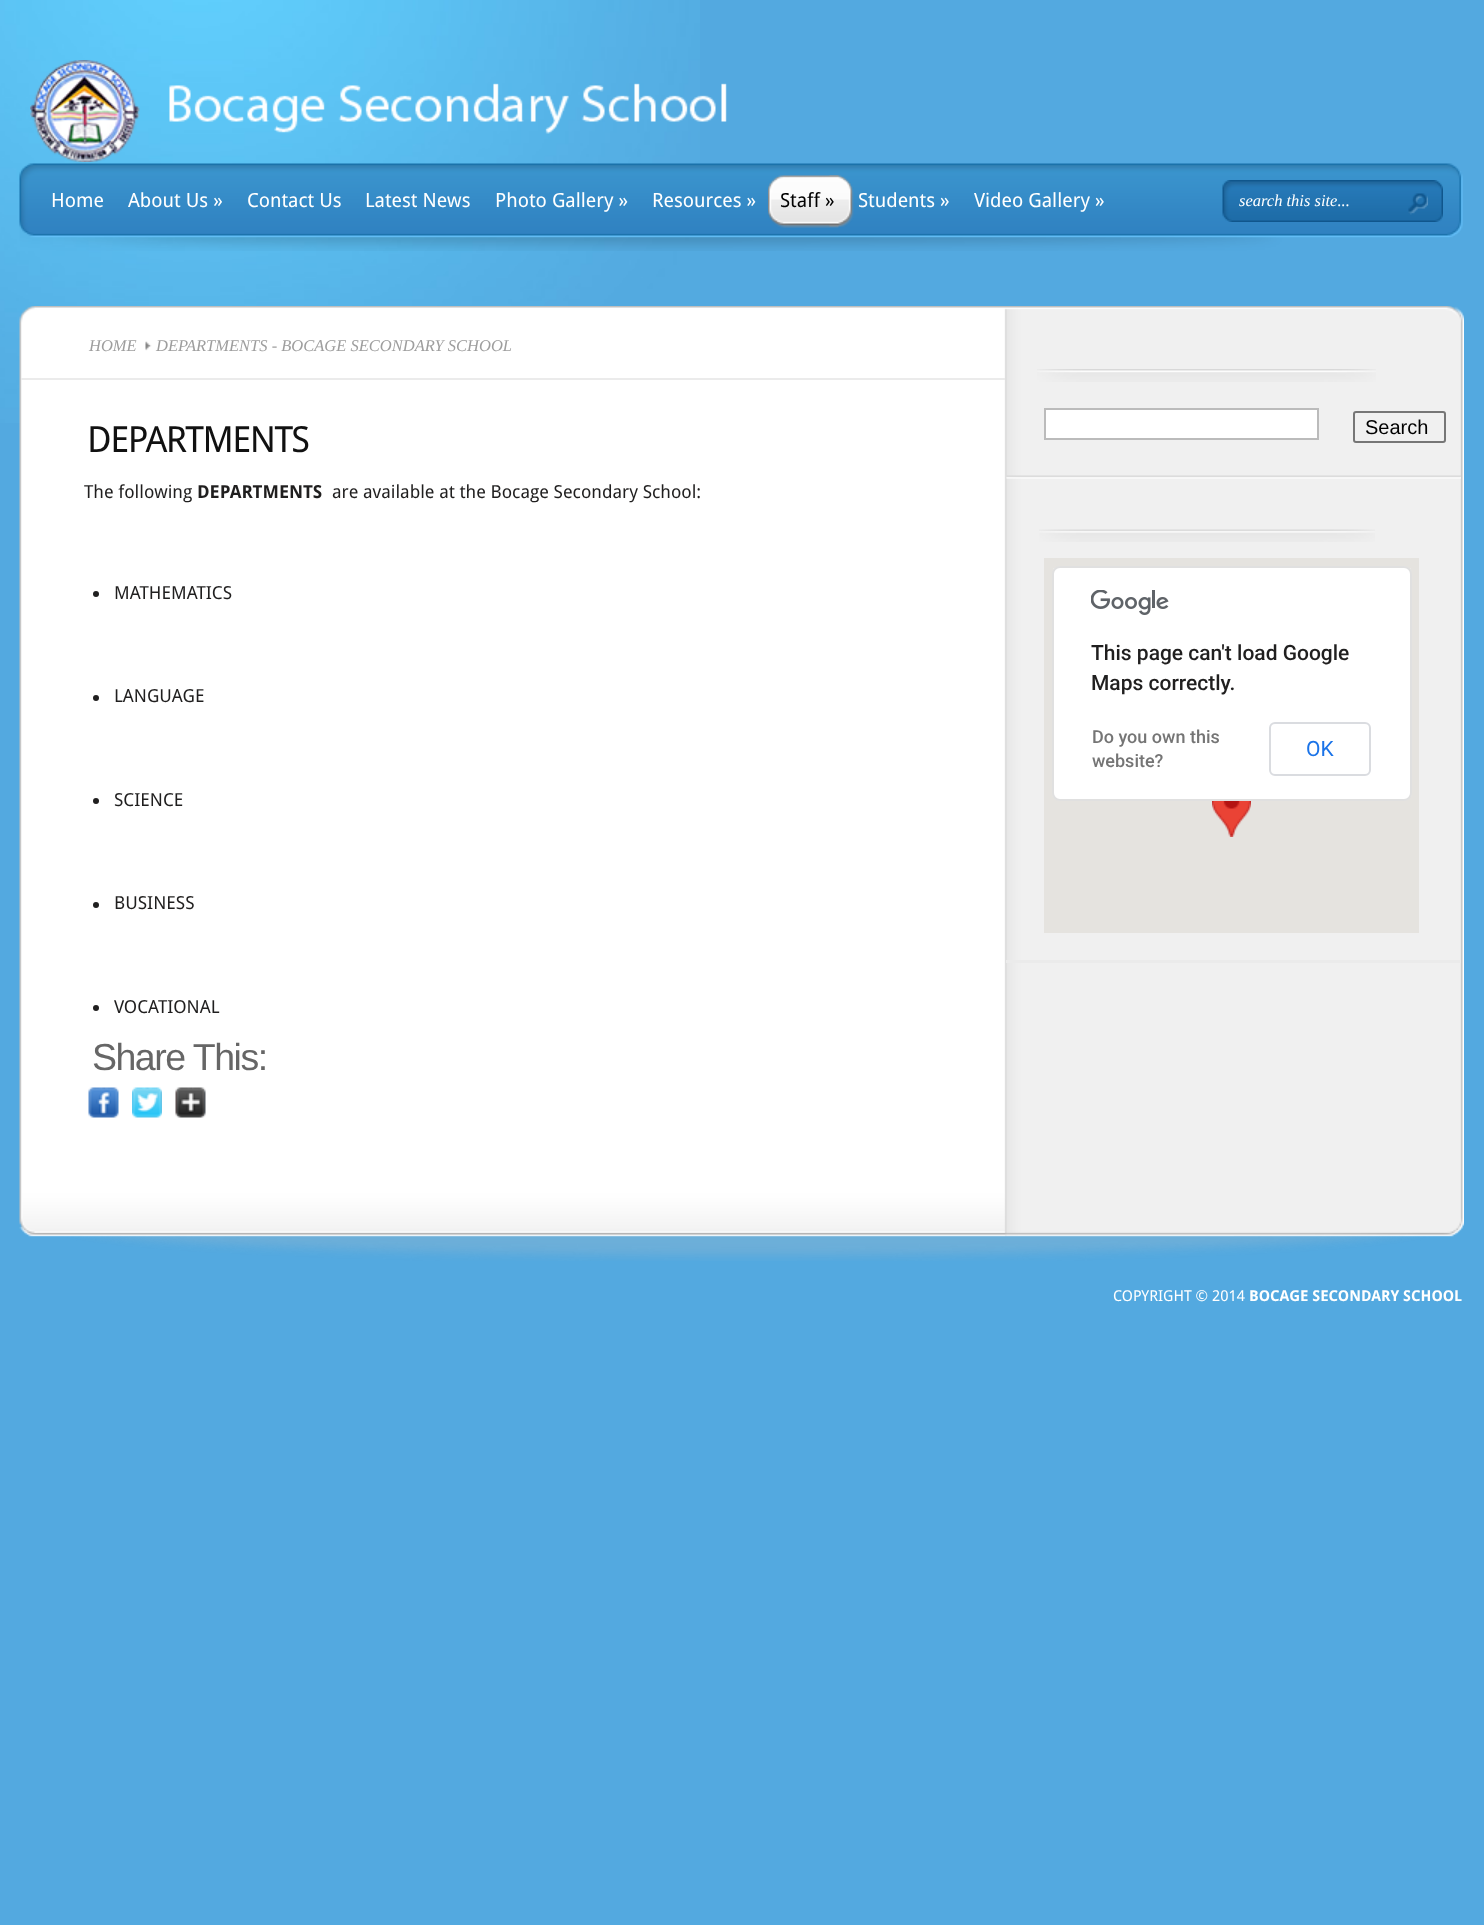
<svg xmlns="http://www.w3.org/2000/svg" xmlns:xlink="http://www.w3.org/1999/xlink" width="1484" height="1925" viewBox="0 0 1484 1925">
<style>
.cls-1{font:19.5px Droid Sans;fill:#ffffff}
.cls-2{font:19.5px Droid Sans;fill:#000000}
.cls-3{font:italic 16.5px Liberation Serif;fill:#ffffff}
.cls-4{font:italic 16.5px Liberation Serif;fill:#9e9e9e}
.cls-5{font:36px Droid Sans;letter-spacing:-1.5px;fill:#111111}
.cls-6{font:18px Droid Sans;fill:#201f1f}
.cls-7{font:bold 18px Droid Sans;fill:#201f1f}
.cls-8{font:37.5px Liberation Sans;letter-spacing:-1.5px;fill:#666666}
.cls-9{font:20px Liberation Sans;fill:#000000}
.cls-10{font:500 21px Roboto;fill:#201f1f}
.cls-11{font:500 18px Roboto;fill:#757575}
.cls-12{font:21px Roboto;fill:#1a73e8}
.cls-13{font:15px Droid Sans;fill:#ffffff}
.cls-14{font:bold 15px Droid Sans;fill:#ffffff}
</style>
<rect width="100%" height="100%" fill="#53a9e0"/>
<image xlink:href="image0.png" x="0" y="0" width="700" height="423"/>
<image xlink:href="image1.png" x="30" y="60" width="697" height="102"/>
<image xlink:href="image2.png" x="19" y="163" width="1444" height="88"/>
<image xlink:href="image3.png" x="829" y="175" width="25" height="52"/>
<image xlink:href="image4.png" x="768" y="175" width="71" height="53"/>
<image xlink:href="image5.png" x="1222" y="180" width="221" height="42"/>
<image xlink:href="image6.png" x="1408" y="193" width="20" height="22"/>
<image xlink:href="image7.png" x="19" y="306" width="1445" height="24"/>
<image xlink:href="image8.png" x="19" y="330" width="1445" height="855"/>
<rect fill="#ebebeb" x="21" y="378" width="984" height="2"/>
<image xlink:href="image9.png" x="145" y="341" width="7" height="10"/>
<circle fill="#201f1f" cx="96" cy="594" r="3"/>
<circle fill="#201f1f" cx="96" cy="698" r="3"/>
<circle fill="#201f1f" cx="96" cy="801" r="3"/>
<circle fill="#201f1f" cx="96" cy="905" r="3"/>
<circle fill="#201f1f" cx="96" cy="1008" r="3"/>
<image xlink:href="image10.png" x="88" y="1087" width="31" height="31"/>
<image xlink:href="image11.png" x="132" y="1087" width="30" height="31"/>
<image xlink:href="image12.png" x="175" y="1087" width="31" height="31"/>
<image xlink:href="image13.png" x="1006" y="475" width="455" height="4"/>
<image xlink:href="image14.png" x="1037" y="369" width="339" height="13"/>
<rect fill="#ffffff" stroke="#bbbbbb" stroke-width="2" x="1045" y="409" width="273" height="30"/>
<rect fill="none" stroke="#767676" stroke-width="2" x="1354" y="412" width="91" height="30" rx="2"/>
<rect fill="#ebebeb" x="1006" y="960" width="455" height="3"/>
<image xlink:href="image15.png" x="1039" y="529" width="336" height="13"/>
<rect fill="#e5e3df" x="1044" y="558" width="375" height="375"/>
<image xlink:href="image16.png" x="1212" y="801" width="39" height="36"/>
<rect fill="#ffffff" x="1052" y="566" width="360" height="235" rx="8"/>
<rect fill="none" stroke="#000000" stroke-opacity="0.12" stroke-width="2" x="1053" y="567" width="358" height="233" rx="7"/>
<image xlink:href="image17.png" x="1091" y="590" width="78" height="25"/>
<rect fill="none" stroke="#dadce0" stroke-width="2" x="1270" y="723" width="100" height="52" rx="5"/>
<image xlink:href="image18.png" x="19" y="1185" width="1445" height="76"/>
<text class="cls-1" x="128" y="207">About Us »</text>
<text class="cls-1" x="247" y="207">Contact Us</text>
<text class="cls-1" x="495" y="207">Photo Gallery »</text>
<text class="cls-1" x="51" y="207">Home</text>
<text class="cls-1" x="365" y="207">Latest News</text>
<text class="cls-1" x="652" y="207">Resources »</text>
<text class="cls-2" x="780" y="207">Staff »</text>
<text class="cls-1" x="858" y="207">Students »</text>
<text class="cls-1" x="974" y="207">Video Gallery »</text>
<text class="cls-3" x="1239" y="206">search this site...</text>
<text class="cls-4" x="89" y="351">HOME</text>
<text class="cls-4" x="156" y="351">DEPARTMENTS - BOCAGE SECONDARY SCHOOL</text>
<text class="cls-5" x="87" y="452">DEPARTMENTS</text>
<text class="cls-6" x="84" y="498">The following</text>
<text class="cls-7" x="197" y="498">DEPARTMENTS</text>
<text class="cls-6" x="332" y="498">are available at the Bocage Secondary School:</text>
<text class="cls-6" x="114" y="599">MATHEMATICS</text>
<text class="cls-6" x="114" y="702">LANGUAGE</text>
<text class="cls-6" x="114" y="806">SCIENCE</text>
<text class="cls-6" x="114" y="909">BUSINESS</text>
<text class="cls-6" x="114" y="1013">VOCATIONAL</text>
<text class="cls-8" x="92" y="1070">Share This:</text>
<text class="cls-9" x="1365" y="434">Search</text>
<text class="cls-10"><tspan x="1091" y="660">This page can't load Google</tspan><tspan x="1091" y="690">Maps correctly.</tspan></text>
<text class="cls-11"><tspan x="1092" y="743">Do you own this</tspan><tspan x="1092" y="767">website?</tspan></text>
<text class="cls-12" x="1306" y="756">OK</text>
<text class="cls-13" x="1113" y="1301">COPYRIGHT © 2014</text>
<text class="cls-14" x="1249" y="1301">BOCAGE SECONDARY SCHOOL</text>
</svg>
